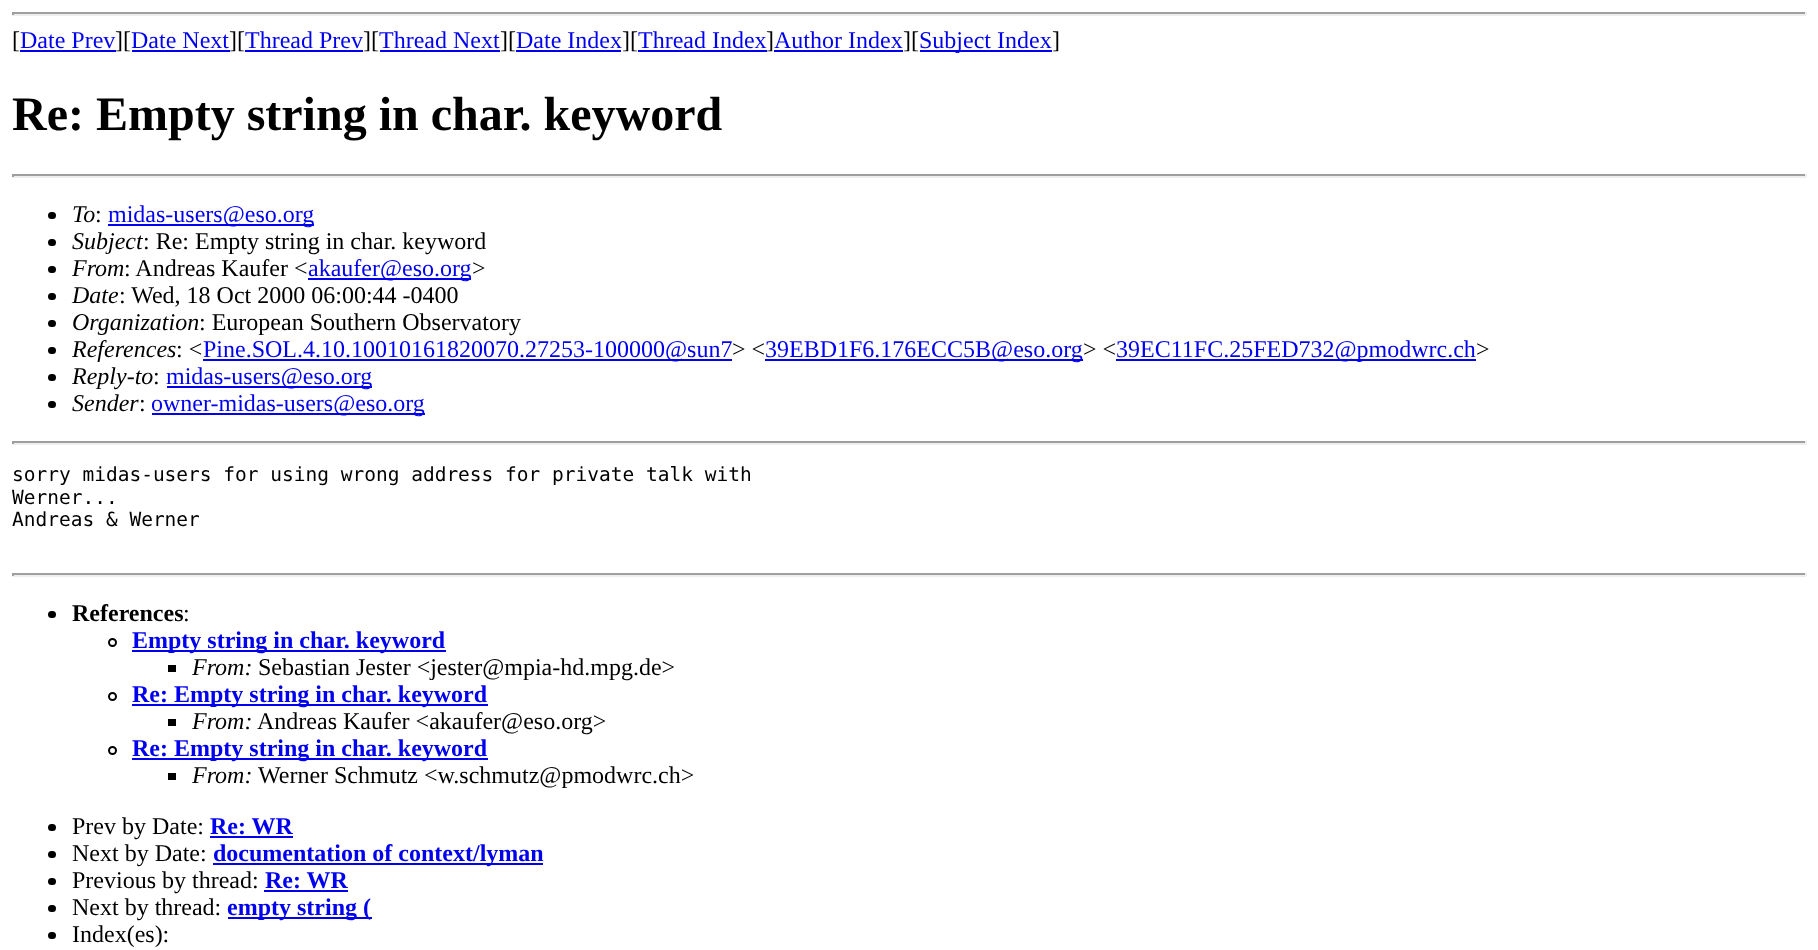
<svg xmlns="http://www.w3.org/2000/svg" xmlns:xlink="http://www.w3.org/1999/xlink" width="1818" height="950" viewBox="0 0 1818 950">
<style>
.cls-1{font:24px Liberation Serif;fill:#000000}
.cls-2{font:24px Liberation Serif;fill:#0000ee}
.cls-3{font:bold 48px Liberation Serif;fill:#000000}
.cls-4{font:italic 24px Liberation Serif;fill:#000000}
.cls-5{font:19.5px DejaVu Sans Mono;fill:#000000}
.cls-6{font:bold 24px Liberation Serif;fill:#000000}
.cls-7{font:bold 24px Liberation Serif;fill:#0000ee}
</style>
<rect width="100%" height="100%" fill="#ffffff"/>
<rect fill="#9f9f9f" x="12" y="12" width="1794" height="2"/>
<rect fill="#eeeeee" x="1805" y="12" width="2" height="3"/>
<rect fill="#eeeeee" x="12" y="14" width="1794" height="2"/>
<rect fill="#9f9f9f" x="12" y="12" width="2" height="3"/>
<rect fill="#0000ee" x="20" y="50" width="96" height="2"/>
<rect fill="#0000ee" x="132" y="50" width="98" height="2"/>
<rect fill="#0000ee" x="245" y="50" width="118" height="2"/>
<rect fill="#0000ee" x="380" y="50" width="120" height="2"/>
<rect fill="#0000ee" x="516" y="50" width="105" height="2"/>
<rect fill="#0000ee" x="638" y="50" width="129" height="2"/>
<rect fill="#0000ee" x="774" y="50" width="129" height="2"/>
<rect fill="#0000ee" x="920" y="50" width="132" height="2"/>
<rect fill="#9f9f9f" x="12" y="174" width="1794" height="2"/>
<rect fill="#eeeeee" x="1805" y="174" width="2" height="3"/>
<rect fill="#eeeeee" x="12" y="176" width="1794" height="2"/>
<rect fill="#9f9f9f" x="12" y="174" width="2" height="3"/>
<rect fill="#000000" x="48" y="212" width="8" height="7" rx="3.5"/>
<rect fill="#0000ee" x="108" y="224" width="206" height="2"/>
<rect fill="#000000" x="48" y="239" width="8" height="7" rx="3.5"/>
<rect fill="#000000" x="48" y="266" width="8" height="7" rx="3.5"/>
<rect fill="#0000ee" x="308" y="278" width="163" height="2"/>
<rect fill="#000000" x="48" y="293" width="8" height="7" rx="3.5"/>
<rect fill="#000000" x="48" y="320" width="8" height="7" rx="3.5"/>
<rect fill="#000000" x="48" y="347" width="8" height="7" rx="3.5"/>
<rect fill="#0000ee" x="203" y="359" width="529" height="2"/>
<rect fill="#0000ee" x="765" y="359" width="318" height="2"/>
<rect fill="#0000ee" x="1116" y="359" width="360" height="2"/>
<rect fill="#000000" x="48" y="374" width="8" height="7" rx="3.5"/>
<rect fill="#0000ee" x="167" y="386" width="205" height="2"/>
<rect fill="#000000" x="48" y="401" width="8" height="7" rx="3.5"/>
<rect fill="#0000ee" x="152" y="413" width="273" height="2"/>
<rect fill="#9f9f9f" x="12" y="441" width="1794" height="2"/>
<rect fill="#eeeeee" x="1805" y="441" width="2" height="3"/>
<rect fill="#eeeeee" x="12" y="443" width="1794" height="2"/>
<rect fill="#9f9f9f" x="12" y="441" width="2" height="3"/>
<rect fill="#9f9f9f" x="12" y="573" width="1794" height="2"/>
<rect fill="#eeeeee" x="1805" y="573" width="2" height="3"/>
<rect fill="#eeeeee" x="12" y="575" width="1794" height="2"/>
<rect fill="#9f9f9f" x="12" y="573" width="2" height="3"/>
<rect fill="#000000" x="48" y="611" width="8" height="7" rx="3.5"/>
<circle fill="none" stroke="#000000" stroke-width="2" cx="112.5" cy="642.5" r="3.5"/>
<rect fill="#0000ee" x="132" y="650" width="314" height="2"/>
<rect fill="#000000" x="168" y="665" width="8" height="7"/>
<circle fill="none" stroke="#000000" stroke-width="2" cx="112.5" cy="696.5" r="3.5"/>
<rect fill="#0000ee" x="132" y="704" width="356" height="2"/>
<rect fill="#000000" x="168" y="719" width="8" height="7"/>
<circle fill="none" stroke="#000000" stroke-width="2" cx="112.5" cy="750.5" r="3.5"/>
<rect fill="#0000ee" x="132" y="758" width="356" height="2"/>
<rect fill="#000000" x="168" y="773" width="8" height="7"/>
<rect fill="#000000" x="48" y="824" width="8" height="7" rx="3.5"/>
<rect fill="#0000ee" x="210" y="836" width="83" height="2"/>
<rect fill="#000000" x="48" y="851" width="8" height="7" rx="3.5"/>
<rect fill="#0000ee" x="213" y="863" width="330" height="2"/>
<rect fill="#000000" x="48" y="878" width="8" height="7" rx="3.5"/>
<rect fill="#0000ee" x="264" y="890" width="84" height="2"/>
<rect fill="#000000" x="48" y="905" width="8" height="7" rx="3.5"/>
<rect fill="#0000ee" x="228" y="917" width="144" height="2"/>
<rect fill="#000000" x="48" y="932" width="8" height="7" rx="3.5"/>
<text class="cls-1" x="12" y="48">[</text>
<text class="cls-2" x="20" y="48">Date Prev</text>
<text class="cls-1" x="115" y="48">][</text>
<text class="cls-2" x="131" y="48">Date Next</text>
<text class="cls-1" x="229" y="48">][</text>
<text class="cls-2" x="245" y="48">Thread Prev</text>
<text class="cls-1" x="363" y="48">][</text>
<text class="cls-2" x="379" y="48">Thread Next</text>
<text class="cls-1" x="500" y="48">][</text>
<text class="cls-2" x="516" y="48">Date Index</text>
<text class="cls-1" x="622" y="48">][</text>
<text class="cls-2" x="638" y="48">Thread Index</text>
<text class="cls-1" x="766" y="48">]</text>
<text class="cls-2" x="774" y="48">Author Index</text>
<text class="cls-1" x="903" y="48">][</text>
<text class="cls-2" x="919" y="48">Subject Index</text>
<text class="cls-1" x="1052" y="48">]</text>
<text class="cls-3" x="12" y="130">Re: Empty string in char. keyword</text>
<text class="cls-4" x="72" y="222">To</text>
<text class="cls-1" x="95" y="222">:</text>
<text class="cls-2" x="108" y="222">midas-users@eso.org</text>
<text class="cls-4" x="72" y="249">Subject</text>
<text class="cls-1" x="143" y="249">: Re: Empty string in char. keyword</text>
<text class="cls-4" x="72" y="276">From</text>
<text class="cls-1" x="124" y="276">: Andreas Kaufer &lt;</text>
<text class="cls-2" x="308" y="276">akaufer@eso.org</text>
<text class="cls-1" x="472" y="276">&gt;</text>
<text class="cls-4" x="72" y="303">Date</text>
<text class="cls-1" x="119" y="303">: Wed, 18 Oct 2000 06:00:44 -0400</text>
<text class="cls-4" x="72" y="330">Organization</text>
<text class="cls-1" x="199" y="330">: European Southern Observatory</text>
<text class="cls-4" x="72" y="357">References</text>
<text class="cls-1" x="176" y="357">: &lt;</text>
<text class="cls-2" x="203" y="357">Pine.SOL.4.10.10010161820070.27253-100000@sun7</text>
<text class="cls-1" x="732" y="357">&gt; &lt;</text>
<text class="cls-2" x="765" y="357">39EBD1F6.176ECC5B@eso.org</text>
<text class="cls-1" x="1083" y="357">&gt; &lt;</text>
<text class="cls-2" x="1116" y="357">39EC11FC.25FED732@pmodwrc.ch</text>
<text class="cls-1" x="1476" y="357">&gt;</text>
<text class="cls-4" x="72" y="384">Reply-to</text>
<text class="cls-1" x="153" y="384">:</text>
<text class="cls-2" x="166" y="384">midas-users@eso.org</text>
<text class="cls-4" x="72" y="411">Sender</text>
<text class="cls-1" x="139" y="411">:</text>
<text class="cls-2" x="151" y="411">owner-midas-users@eso.org</text>
<text class="cls-5"><tspan x="12" y="481">sorry midas-users for using wrong address for private talk with</tspan><tspan x="12" y="504">Werner...</tspan><tspan x="12" y="526">Andreas &amp; Werner</tspan></text>
<text class="cls-6" x="72" y="621">References</text>
<text class="cls-1" x="183" y="621">:</text>
<text class="cls-7" x="132" y="648">Empty string in char. keyword</text>
<text class="cls-4" x="192" y="675">From:</text>
<text class="cls-1" x="258" y="675">Sebastian Jester &lt;jester@mpia-hd.mpg.de&gt;</text>
<text class="cls-7" x="132" y="702">Re: Empty string in char. keyword</text>
<text class="cls-4" x="192" y="729">From:</text>
<text class="cls-1" x="257" y="729">Andreas Kaufer &lt;akaufer@eso.org&gt;</text>
<text class="cls-7" x="132" y="756">Re: Empty string in char. keyword</text>
<text class="cls-4" x="192" y="783">From:</text>
<text class="cls-1" x="258" y="783">Werner Schmutz &lt;w.schmutz@pmodwrc.ch&gt;</text>
<text class="cls-1" x="72" y="834">Prev by Date:</text>
<text class="cls-7" x="210" y="834">Re: WR</text>
<text class="cls-1" x="72" y="861">Next by Date:</text>
<text class="cls-7" x="213" y="861">documentation of context/lyman</text>
<text class="cls-1" x="72" y="888">Previous by thread:</text>
<text class="cls-7" x="265" y="888">Re: WR</text>
<text class="cls-1" x="72" y="915">Next by thread:</text>
<text class="cls-7" x="227" y="915">empty string (</text>
<text class="cls-1" x="72" y="942">Index(es):</text>
</svg>
